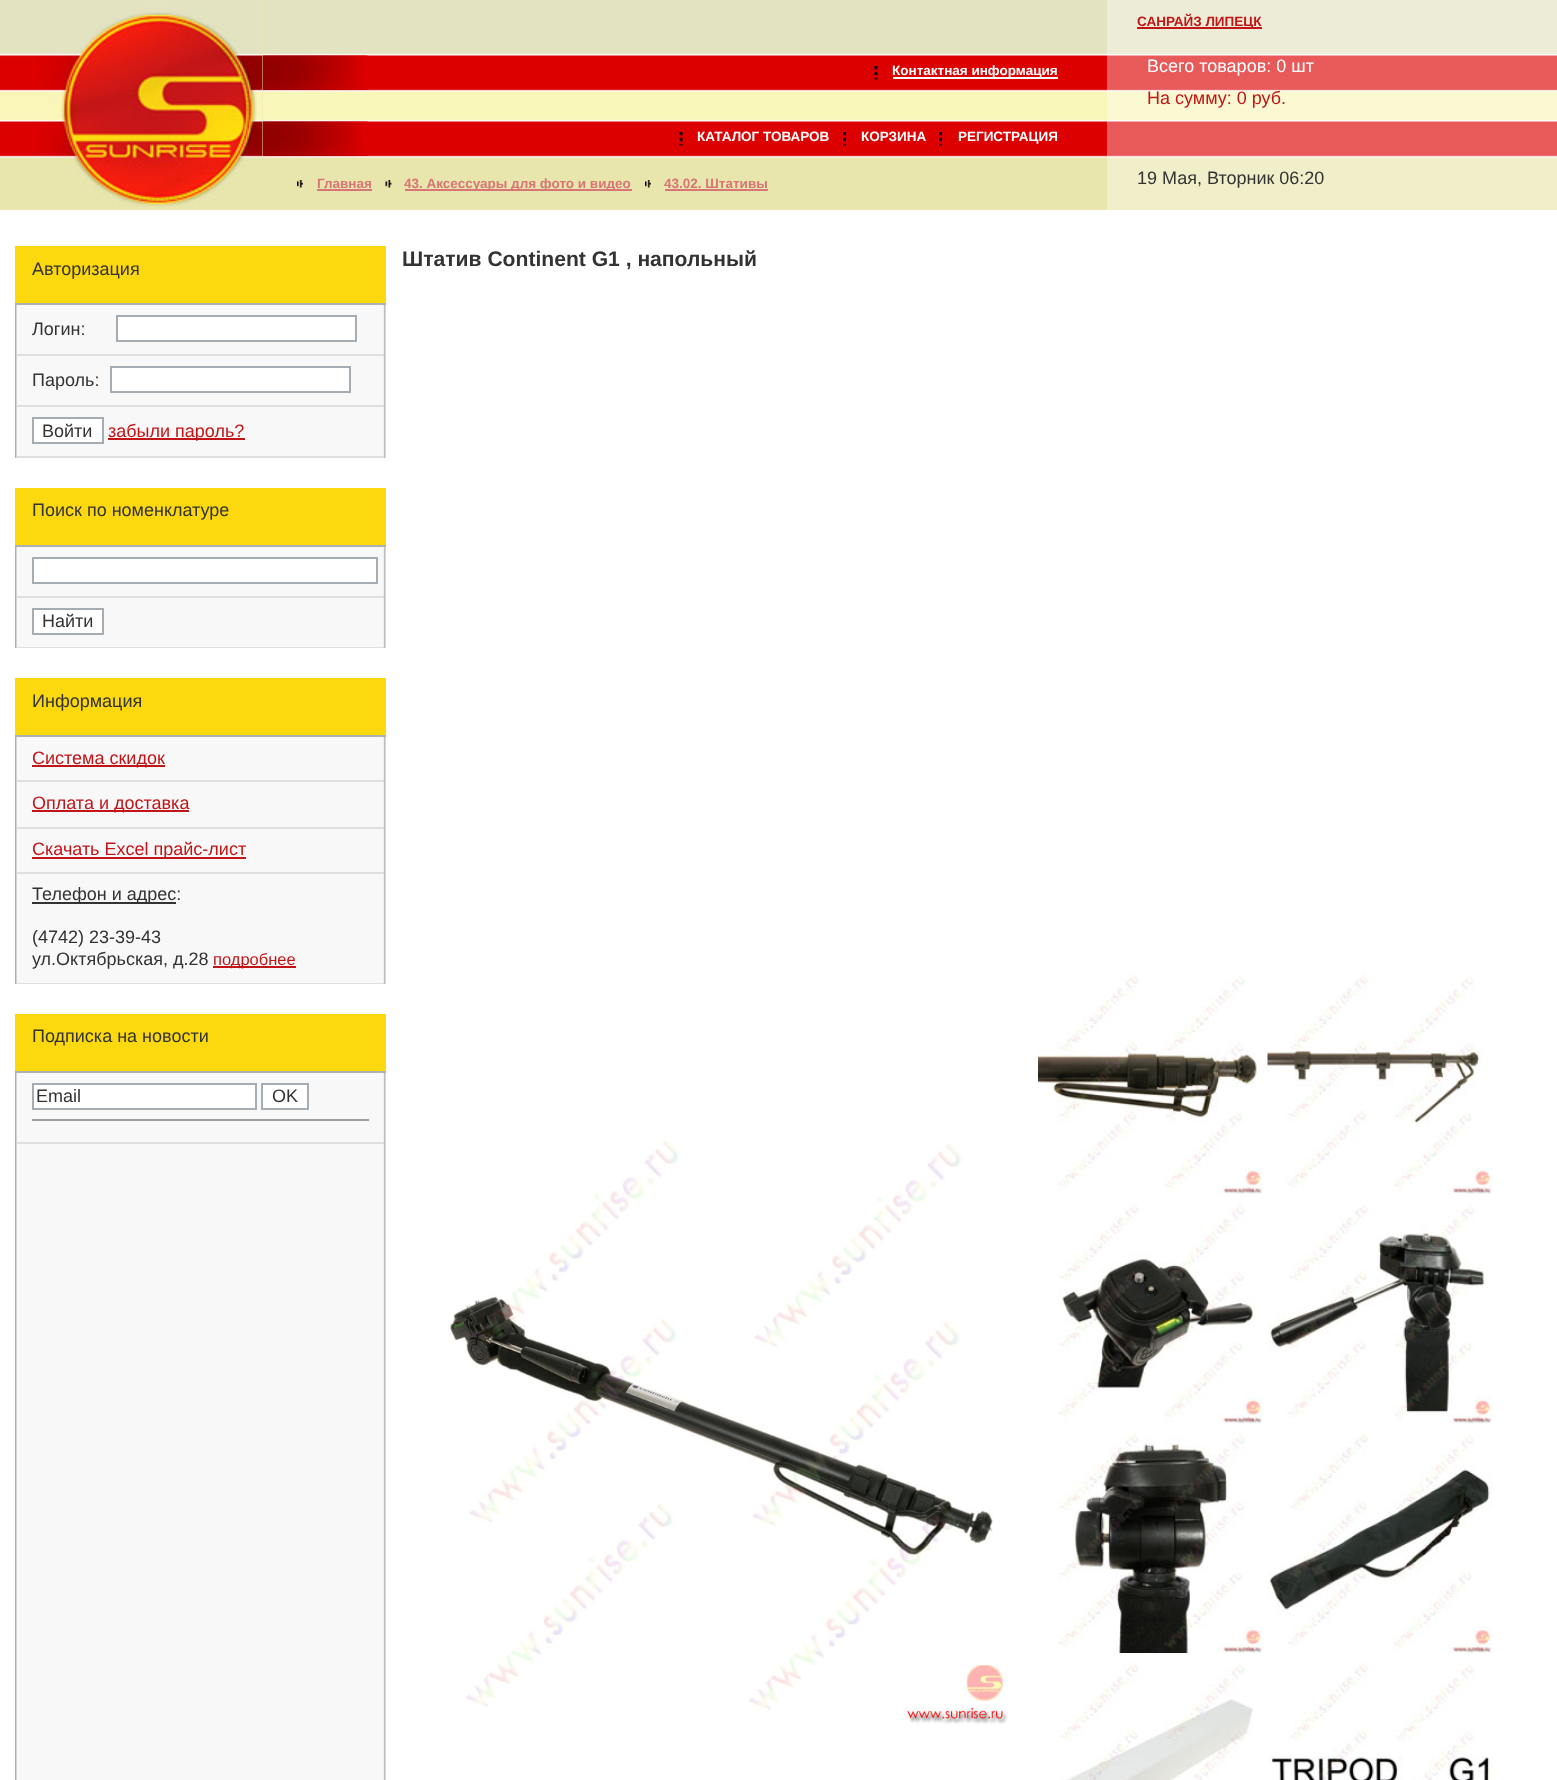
<svg xmlns="http://www.w3.org/2000/svg" xmlns:xlink="http://www.w3.org/1999/xlink" width="1557" height="1780" viewBox="0 0 1557 1780">
<style>
.cls-1{font:bold 13.5px Liberation Sans;fill:#ffffff}
.cls-2{font:bold 13.5px Liberation Sans;fill:#d87576}
.cls-3{font:bold 13.5px Liberation Sans;fill:#c21517}
.cls-4{font:18px Liberation Sans;fill:#ffffff}
.cls-5{font:18px Liberation Sans;fill:#c21517}
.cls-6{font:18px Liberation Sans;fill:#333333}
.cls-7{font:bold 21.1px Liberation Sans;fill:#333333}
.cls-8{font:16.5px Liberation Sans;fill:#c21517}
</style>
<rect width="100%" height="100%" fill="#ffffff"/>
<rect fill="#e8e6ad" x="263" y="158" width="844" height="52"/>
<rect fill="#f0efca" x="1107" y="189" width="450" height="21"/>
<rect fill="#e8e6ad" x="0" y="0" width="263" height="210"/>
<image xlink:href="image0.png" x="0" y="0" width="263" height="207"/>
<image xlink:href="image1.png" x="263" y="0" width="844" height="158"/>
<image xlink:href="image2.png" x="263" y="55" width="105" height="35"/>
<image xlink:href="image3.png" x="874" y="66" width="4" height="14"/>
<rect fill="#ffffff" x="893" y="77" width="165" height="2"/>
<image xlink:href="image2.png" x="263" y="121" width="105" height="35"/>
<image xlink:href="image3.png" x="679" y="132" width="4" height="14"/>
<image xlink:href="image4.png" x="843" y="132" width="3" height="14"/>
<image xlink:href="image4.png" x="939" y="132" width="3" height="14"/>
<image xlink:href="image5.png" x="297" y="180" width="6" height="8"/>
<rect fill="#d87576" x="317" y="189" width="55" height="2"/>
<image xlink:href="image6.png" x="385" y="180" width="7" height="8"/>
<rect fill="#d87576" x="405" y="189" width="227" height="2"/>
<image xlink:href="image7.png" x="645" y="180" width="6" height="8"/>
<rect fill="#d87576" x="665" y="189" width="103" height="2"/>
<rect fill="#ededd7" x="1107" y="0" width="450" height="53"/>
<image xlink:href="image8.png" x="1107" y="53" width="450" height="136"/>
<rect fill="#c21517" x="1137" y="27" width="125" height="2"/>
<image xlink:href="image9.png" x="15" y="305" width="371" height="1475"/>
<image xlink:href="image10.png" x="447" y="1140" width="561" height="584"/>
<image xlink:href="image11.png" x="1038" y="973" width="225" height="221"/>
<image xlink:href="image12.png" x="1267" y="973" width="226" height="221"/>
<image xlink:href="image13.png" x="1058" y="1203" width="205" height="221"/>
<image xlink:href="image14.png" x="1267" y="1203" width="226" height="221"/>
<image xlink:href="image15.png" x="1058" y="1432" width="205" height="221"/>
<image xlink:href="image16.png" x="1268" y="1432" width="225" height="221"/>
<image xlink:href="image17.png" x="1060" y="1662" width="193" height="118"/>
<image xlink:href="image18.png" x="1269" y="1662" width="224" height="118"/>
<rect fill="#fcd80f" x="15" y="246" width="371" height="57"/>
<rect fill="#b0b0b0" x="15" y="303" width="371" height="2"/>
<rect fill="#dfdfdf" x="17" y="354" width="367" height="2"/>
<rect fill="#ffffff" stroke="#a5acb2" stroke-width="2" x="117" y="316" width="239" height="25"/>
<rect fill="#dfdfdf" x="17" y="405" width="367" height="2"/>
<rect fill="#ffffff" stroke="#a5acb2" stroke-width="2" x="111" y="367" width="239" height="25"/>
<rect fill="#dfdfdf" x="17" y="456" width="367" height="2"/>
<rect fill="#ffffff" stroke="#a5acb2" stroke-width="2" x="33" y="418" width="70" height="25"/>
<rect fill="#c21517" x="108" y="438" width="137" height="2"/>
<rect fill="#ffffff" x="15" y="458" width="371" height="30"/>
<rect fill="#fcd80f" x="15" y="488" width="371" height="57"/>
<rect fill="#b0b0b0" x="15" y="545" width="371" height="2"/>
<rect fill="#dfdfdf" x="17" y="596" width="367" height="2"/>
<rect fill="#ffffff" stroke="#a5acb2" stroke-width="2" x="33" y="558" width="344" height="25"/>
<rect fill="#dfdfdf" x="17" y="647" width="367" height="1"/>
<rect fill="#ffffff" stroke="#a5acb2" stroke-width="2" x="33" y="609" width="70" height="25"/>
<rect fill="#ffffff" x="15" y="648" width="371" height="30"/>
<rect fill="#fcd80f" x="15" y="678" width="371" height="57"/>
<rect fill="#b0b0b0" x="15" y="735" width="371" height="2"/>
<rect fill="#dfdfdf" x="17" y="780" width="367" height="2"/>
<rect fill="#c21517" x="32" y="765" width="133" height="2"/>
<rect fill="#dfdfdf" x="17" y="827" width="367" height="2"/>
<rect fill="#c21517" x="32" y="810" width="157" height="2"/>
<rect fill="#dfdfdf" x="17" y="872" width="367" height="2"/>
<rect fill="#c21517" x="32" y="857" width="214" height="2"/>
<rect fill="#dfdfdf" x="17" y="983" width="367" height="1"/>
<rect fill="#333333" x="32" y="902" width="144" height="2"/>
<rect fill="#c21517" x="213" y="966" width="83" height="2"/>
<rect fill="#ffffff" x="15" y="984" width="371" height="30"/>
<rect fill="#fcd80f" x="15" y="1014" width="371" height="57"/>
<rect fill="#b0b0b0" x="15" y="1071" width="371" height="2"/>
<rect fill="#dfdfdf" x="17" y="1142" width="367" height="2"/>
<rect fill="#ffffff" stroke="#a5acb2" stroke-width="2" x="33" y="1084" width="223" height="25"/>
<rect fill="#ffffff" stroke="#a5acb2" stroke-width="2" x="262" y="1084" width="46" height="25"/>
<rect fill="#9f9f9f" x="32" y="1119" width="339" height="2"/>
<rect fill="#eeeeee" x="369" y="1119" width="2" height="2"/>
<text class="cls-1" x="892" y="75">Контактная информация</text>
<text class="cls-1" x="697" y="141">КАТАЛОГ ТОВАРОВ</text>
<text class="cls-1" x="861" y="141">КОРЗИНА</text>
<text class="cls-1" x="958" y="141">РЕГИСТРАЦИЯ</text>
<text class="cls-2" x="317" y="188">Главная</text>
<text class="cls-2" x="404" y="188">43. Аксессуары для фото и видео</text>
<text class="cls-2" x="664" y="188">43.02. Штативы</text>
<text class="cls-3" x="1137" y="26">САНРАЙЗ ЛИПЕЦК</text>
<text class="cls-4" x="1147" y="72">Всего товаров: 0 шт</text>
<text class="cls-5" x="1147" y="104">На сумму: 0 руб.</text>
<text class="cls-6" x="1137" y="184">19 Мая, Вторник 06:20</text>
<text class="cls-7" x="402" y="266">Штатив Continent G1 , напольный</text>
<text class="cls-6" x="32" y="275">Авторизация</text>
<text class="cls-6" x="32" y="335">Логин:</text>
<text class="cls-6" x="32" y="386">Пароль:</text>
<text class="cls-6" x="42" y="437">Войти</text>
<text class="cls-5" x="108" y="437">забыли пароль?</text>
<text class="cls-6" x="32" y="516">Поиск по номенклатуре</text>
<text class="cls-6" x="42" y="627">Найти</text>
<text class="cls-6" x="32" y="707">Информация</text>
<text class="cls-5" x="32" y="764">Система скидок</text>
<text class="cls-5" x="32" y="809">Оплата и доставка</text>
<text class="cls-5" x="32" y="855">Скачать Excel прайс-лист</text>
<text class="cls-6" x="32" y="900">Телефон и адрес:</text>
<text class="cls-6"><tspan x="32" y="943">(4742) 23-39-43</tspan><tspan x="32" y="965">ул.Октябрьская, д.28</tspan></text>
<text class="cls-8" x="213" y="965">подробнее</text>
<text class="cls-6" x="32" y="1042">Подписка на новости</text>
<text class="cls-6" x="36" y="1102">Email</text>
<text class="cls-6" x="272" y="1102">OK</text>
</svg>
